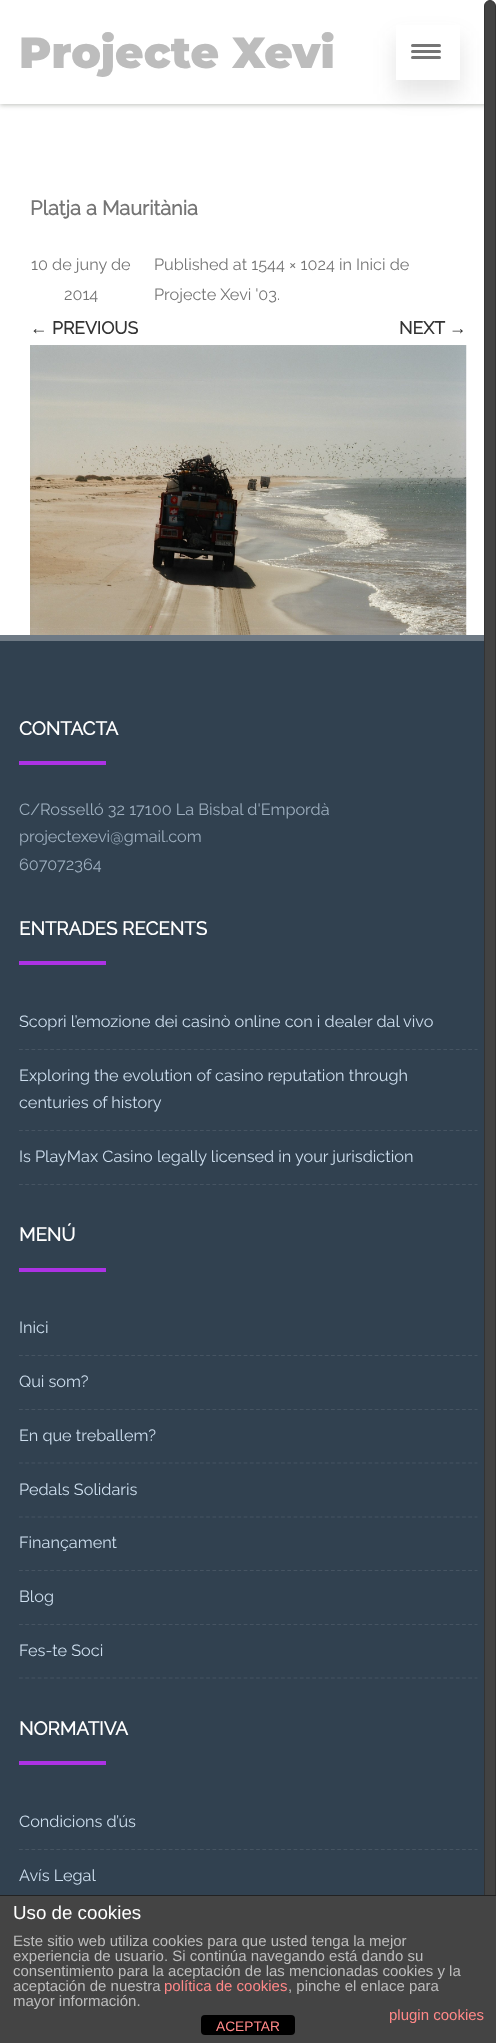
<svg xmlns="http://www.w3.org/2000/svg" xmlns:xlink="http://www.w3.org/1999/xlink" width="496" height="2043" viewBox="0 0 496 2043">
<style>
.cls-1{font:900 43.75px Montserrat;fill:#bdbdbd}
.cls-2{font:bold 20px Raleway;fill:#757575}
.cls-3{font:16.25px Raleway;fill:#757575}
.cls-4{font:bold 17.5px Liberation Sans;fill:#333333}
.cls-5{font:bold 17.5px Raleway;fill:#333333}
.cls-6{font:bold 18.75px Raleway;fill:#ffffff}
.cls-7{font:16.25px Raleway;fill:#9eafbf}
.cls-8{font:16.25px Raleway;fill:#cddeee}
.cls-9{font:18.75px Liberation Sans;fill:#ffffff}
.cls-10{font:15px Liberation Sans;fill:#bdbdbd}
.cls-11{font:15px Liberation Sans;fill:#ff8888}
.cls-12{font:13.75px Liberation Sans;fill:#ff8888}
</style>
<defs>
<clipPath id="clip1"><path d="M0 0H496V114H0ZM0 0H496V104H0Z" clip-rule="evenodd"/></clipPath>
<clipPath id="clip2"><path d="M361 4H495V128H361ZM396 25H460V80H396Z" clip-rule="evenodd"/></clipPath>
</defs>
<rect width="100%" height="100%" fill="#ffffff"/>
<g clip-path="url(#clip1)">
<rect fill="#a7a9a4" fill-opacity="0.75" filter="blur(2.5px)" x="0" y="1" width="496" height="104"/>
</g>
<g clip-path="url(#clip2)">
<rect fill="#404040" fill-opacity="0.13" filter="blur(11px)" x="395" y="38" width="66" height="56"/>
</g>
<rect fill="#757575" x="411" y="44" width="30" height="3" rx="1.5"/>
<rect fill="#757575" x="411" y="50" width="30" height="3" rx="1.5"/>
<rect fill="#757575" x="411" y="56" width="30" height="3" rx="1.5"/>
<image xlink:href="image0.png" x="30" y="345" width="437" height="290"/>
<rect fill="#314150" x="0" y="641" width="484" height="1254"/>
<rect fill="#6f7a85" x="0" y="635" width="484" height="6"/>
<rect fill="#ac32e4" x="19" y="761" width="87" height="4"/>
<rect fill="#ac32e4" x="19" y="961" width="87" height="4"/>
<path fill="none" stroke="#465462" stroke-width="1.2" stroke-dasharray="3.75 2.49" d="M19 1049.5H477.5"/>
<path fill="none" stroke="#465462" stroke-width="1.2" stroke-dasharray="3.75 2.49" d="M19 1130.5H477.5"/>
<path fill="none" stroke="#465462" stroke-width="1.2" stroke-dasharray="3.75 2.49" d="M19 1184.5H477.5"/>
<rect fill="#ac32e4" x="19" y="1268" width="87" height="4"/>
<path fill="none" stroke="#465462" stroke-width="1.2" stroke-dasharray="3.75 2.49" d="M19 1355.5H477.5"/>
<path fill="none" stroke="#465462" stroke-width="1.2" stroke-dasharray="3.75 2.49" d="M19 1409.5H477.5"/>
<path fill="none" stroke="#465462" stroke-width="1.2" stroke-dasharray="3.75 2.49" d="M19 1463H477.5"/>
<path fill="none" stroke="#465462" stroke-width="1.2" stroke-dasharray="3.75 2.49" d="M19 1517H477.5"/>
<path fill="none" stroke="#465462" stroke-width="1.2" stroke-dasharray="3.75 2.49" d="M19 1570.5H477.5"/>
<path fill="none" stroke="#465462" stroke-width="1.2" stroke-dasharray="3.75 2.49" d="M19 1624.5H477.5"/>
<path fill="none" stroke="#465462" stroke-width="1.2" stroke-dasharray="3.75 2.49" d="M19 1678H477.5"/>
<rect fill="#ac32e4" x="19" y="1761" width="87" height="4"/>
<path fill="none" stroke="#465462" stroke-width="1.2" stroke-dasharray="3.75 2.49" d="M19 1849.5H477.5"/>
<rect fill="#424242" stroke="#333333" x="484.5" y="0.5" width="11" height="2034" rx="5.5"/>
<rect fill="#444444" x="0" y="1896" width="496" height="147"/>
<rect fill="#222222" x="0" y="1895" width="496" height="1"/>
<rect fill="#000000" x="201" y="2015" width="94" height="20" rx="4"/>
<text class="cls-1" x="19" y="68">Projecte Xevi</text>
<text class="cls-2" x="30" y="215">Platja a Mauritània</text>
<text class="cls-3" x="31" y="270">10 de juny de</text>
<text class="cls-3" x="64" y="300">2014</text>
<text class="cls-3"><tspan x="154" y="270">Published at 1544 × 1024 in Inici de</tspan><tspan x="154" y="300">Projecte Xevi '03.</tspan></text>
<text class="cls-4" x="30" y="334">←</text>
<text class="cls-5" x="52" y="334">PREVIOUS</text>
<text class="cls-5" x="399" y="334">NEXT</text>
<text class="cls-4" x="449" y="334">→</text>
<text class="cls-6" x="19" y="735">CONTACTA</text>
<text class="cls-7"><tspan x="19" y="815">C/Rosselló 32 17100 La Bisbal d'Empordà</tspan><tspan x="19" y="842">projectexevi@gmail.com</tspan><tspan x="19" y="870">607072364</tspan></text>
<text class="cls-6" x="19" y="935">ENTRADES RECENTS</text>
<text class="cls-8" x="19" y="1027">Scopri l’emozione dei casinò online con i dealer dal vivo</text>
<text class="cls-8"><tspan x="19" y="1081">Exploring the evolution of casino reputation through</tspan><tspan x="19" y="1108">centuries of history</tspan></text>
<text class="cls-8" x="19" y="1162">Is PlayMax Casino legally licensed in your jurisdiction</text>
<text class="cls-6" x="19" y="1241">MENÚ</text>
<text class="cls-8" x="19" y="1333">Inici</text>
<text class="cls-8" x="19" y="1387">Qui som?</text>
<text class="cls-8" x="19" y="1441">En que treballem?</text>
<text class="cls-8" x="19" y="1495">Pedals Solidaris</text>
<text class="cls-8" x="19" y="1548">Finançament</text>
<text class="cls-8" x="19" y="1602">Blog</text>
<text class="cls-8" x="19" y="1656">Fes-te Soci</text>
<text class="cls-6" x="19" y="1735">NORMATIVA</text>
<text class="cls-8" x="19" y="1827">Condicions d’ús</text>
<text class="cls-8" x="19" y="1881">Avís Legal</text>
<text class="cls-9" x="13" y="1919">Uso de cookies</text>
<text class="cls-10"><tspan x="13" y="1946">Este sitio web utiliza cookies para que usted tenga la mejor</tspan><tspan x="13" y="1961">experiencia de usuario. Si continúa navegando está dando su</tspan><tspan x="13" y="1976">consentimiento para la aceptación de las mencionadas cookies y la</tspan><tspan x="13" y="1991">aceptación de nuestra</tspan></text>
<text class="cls-11" x="164" y="1991">política de cookies</text>
<text class="cls-10" x="288" y="1991">, pinche el enlace para</text>
<text class="cls-10" x="13" y="2006">mayor información.</text>
<text class="cls-11" x="389" y="2020">plugin cookies</text>
<text class="cls-12" x="216" y="2031">ACEPTAR</text>
</svg>
